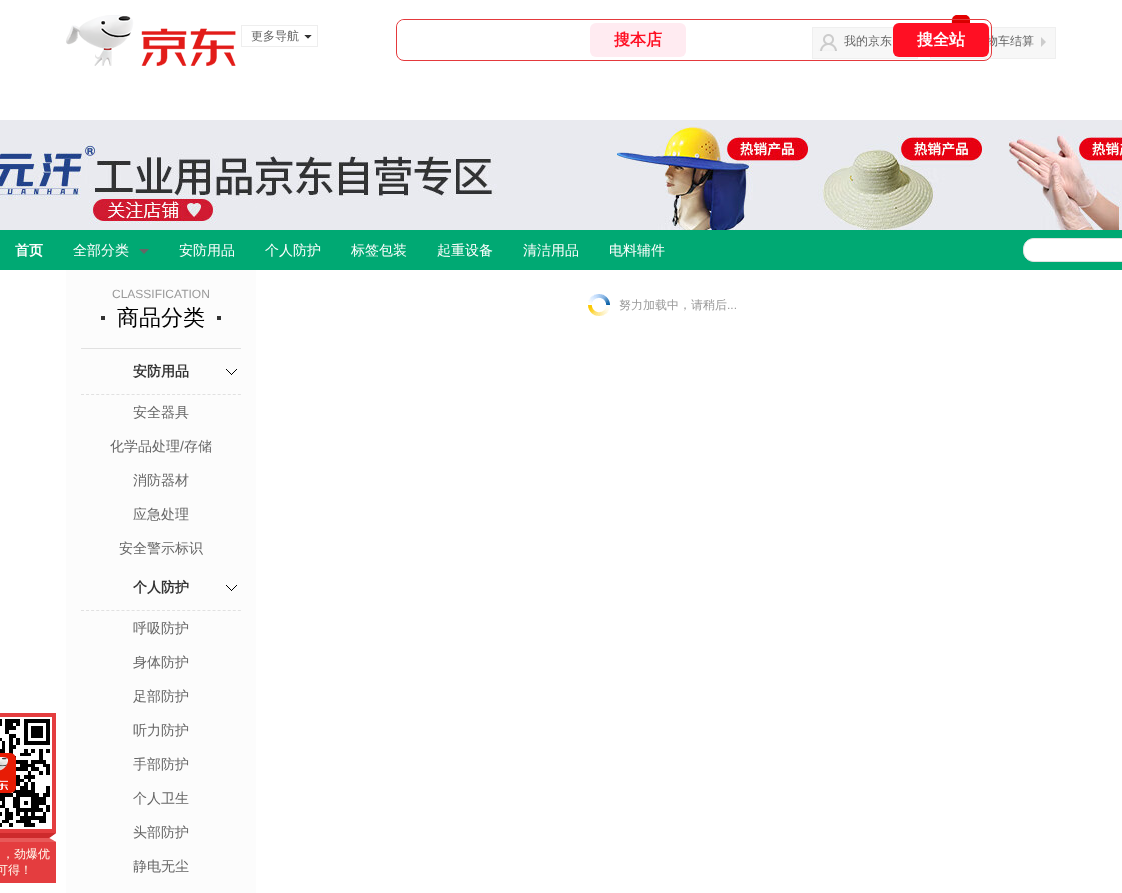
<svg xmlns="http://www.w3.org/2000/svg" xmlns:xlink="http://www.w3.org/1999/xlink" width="1122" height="893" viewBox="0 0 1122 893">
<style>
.cls-1{font:500 12px WenQuanYi Zen Hei;fill:#666666}
.cls-2{font:bold 16px WenQuanYi Zen Hei;fill:#ffffff}
.cls-3{font:bold 16px WenQuanYi Zen Hei;fill:#ff0f23}
.cls-4{font:bold 14px WenQuanYi Zen Hei;fill:#ffffff}
.cls-5{font:500 14px WenQuanYi Zen Hei;fill:#ffffff}
.cls-6{font:12px Liberation Sans;fill:#999999}
.cls-7{font:500 22px WenQuanYi Zen Hei;fill:#000000}
.cls-8{font:bold 14px WenQuanYi Zen Hei;fill:#333333}
.cls-9{font:500 14px WenQuanYi Zen Hei;fill:#666666}
.cls-10{font:14px Liberation Sans;fill:#666666}
.cls-11{font:500 12px WenQuanYi Zen Hei;fill:#999999}
.cls-12{font:500 12px WenQuanYi Zen Hei;fill:#fffbee}
</style>
<rect width="100%" height="100%" fill="#ffffff"/>
<image xlink:href="image0.png" x="66" y="15" width="170" height="51"/>
<rect fill="none" stroke="#eeeeee" x="241.5" y="25.5" width="76" height="21"/>
<path fill="#333333" d="M304 35H312L308 39Z"/>
<path fill="#ffffff" d="M312 35V43L308 39ZM304 43V35L308 39Z"/>
<rect fill="#f7f7f7" x="813" y="28" width="104" height="30"/>
<image xlink:href="image1.png" x="818" y="34" width="19" height="17"/>
<rect fill="none" stroke="#efefef" x="812.5" y="27.5" width="105" height="31"/>
<rect fill="#f7f7f7" stroke="#efefef" x="930.5" y="27.5" width="125" height="31"/>
<image xlink:href="image2.png" x="951" y="15" width="19" height="8"/>
<image xlink:href="image3.png" x="959" y="15" width="11" height="8"/>
<path fill="#cccccc" d="M1041 47V37L1046 42Z"/>
<image xlink:href="image4.png" x="0" y="120" width="1122" height="110"/>
<rect fill="#00a973" x="0" y="230" width="1122" height="40"/>
<path fill="#666666" d="M139 249H149L144 254Z"/>
<path fill="#ffffff" stroke="#e1e1e1" d="M1034 238.5H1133.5V261.5H1034C1028 261.5 1023.5 257 1023.5 251V249C1023.5 243 1028 238.5 1034 238.5Z"/>
<rect fill="#fcfcfc" x="66" y="270" width="190" height="623"/>
<rect fill="#e1e1e1" x="81" y="348" width="160" height="1"/>
<rect fill="#333333" x="101" y="316" width="4" height="4"/>
<rect fill="#333333" x="217" y="316" width="4" height="4"/>
<path fill="none" stroke="#e1e1e1" stroke-dasharray="3 2.06" d="M81 394.5H241"/>
<image xlink:href="image5.png" x="226" y="369" width="11" height="6"/>
<path fill="none" stroke="#e1e1e1" stroke-dasharray="3 2.06" d="M81 610.5H241"/>
<image xlink:href="image5.png" x="226" y="585" width="11" height="6"/>
<image xlink:href="image6.png" x="588" y="294" width="22" height="22"/>
<rect fill="#e43d3f" x="0" y="713" width="56" height="120"/>
<image xlink:href="image7.png" x="0" y="717" width="52" height="112"/>
<image xlink:href="image8.png" x="0" y="833" width="56" height="9"/>
<rect fill="#e43d3f" x="0" y="842" width="56" height="41"/>
<text class="cls-1" x="251" y="40">更多导航</text>
<text class="cls-1" x="844" y="45">我的京东</text>
<text class="cls-1" x="986" y="45">物车结算</text>
<rect fill="none" stroke="#e4393c" x="396.5" y="19.5" width="595" height="41" rx="7.5"/>
<rect fill="#ff0f23" x="893" y="23" width="96" height="34" rx="6"/>
<text class="cls-2" x="917" y="45">搜全站</text>
<path fill="#ffffff" d="M405 20H592V50H397V28C397 23.5 400.5 20 405 20Z"/>
<rect fill="#ffebf1" x="590" y="23" width="96" height="34" rx="6"/>
<text class="cls-3" x="614" y="45">搜本店</text>
<text class="cls-4" x="15" y="255">首页</text>
<text class="cls-5" x="73" y="255">全部分类</text>
<text class="cls-5" x="179" y="255">安防用品</text>
<text class="cls-5" x="265" y="255">个人防护</text>
<text class="cls-5" x="351" y="255">标签包装</text>
<text class="cls-5" x="437" y="255">起重设备</text>
<text class="cls-5" x="523" y="255">清洁用品</text>
<text class="cls-5" x="609" y="255">电料辅件</text>
<text class="cls-6" x="112" y="298">CLASSIFICATION</text>
<text class="cls-7" x="117" y="325">商品分类</text>
<text class="cls-8" x="133" y="376">安防用品</text>
<text class="cls-9" x="133" y="417">安全器具</text>
<text class="cls-9" x="110" y="451">化学品处理</text>
<text class="cls-10" x="180" y="451">/</text>
<text class="cls-9" x="184" y="451">存储</text>
<text class="cls-9" x="133" y="485">消防器材</text>
<text class="cls-9" x="133" y="519">应急处理</text>
<text class="cls-9" x="119" y="553">安全警示标识</text>
<text class="cls-8" x="133" y="592">个人防护</text>
<text class="cls-9" x="133" y="633">呼吸防护</text>
<text class="cls-9" x="133" y="667">身体防护</text>
<text class="cls-9" x="133" y="701">足部防护</text>
<text class="cls-9" x="133" y="735">听力防护</text>
<text class="cls-9" x="133" y="769">手部防护</text>
<text class="cls-9" x="133" y="803">个人卫生</text>
<text class="cls-9" x="133" y="837">头部防护</text>
<text class="cls-9" x="133" y="871">静电无尘</text>
<text class="cls-11" x="619" y="309">努力加载中，请稍后</text>
<text class="cls-6" x="727" y="309">...</text>
<text class="cls-12" x="2" y="858">，劲爆优</text>
<text class="cls-12" x="-4" y="874">可得！</text>
</svg>
